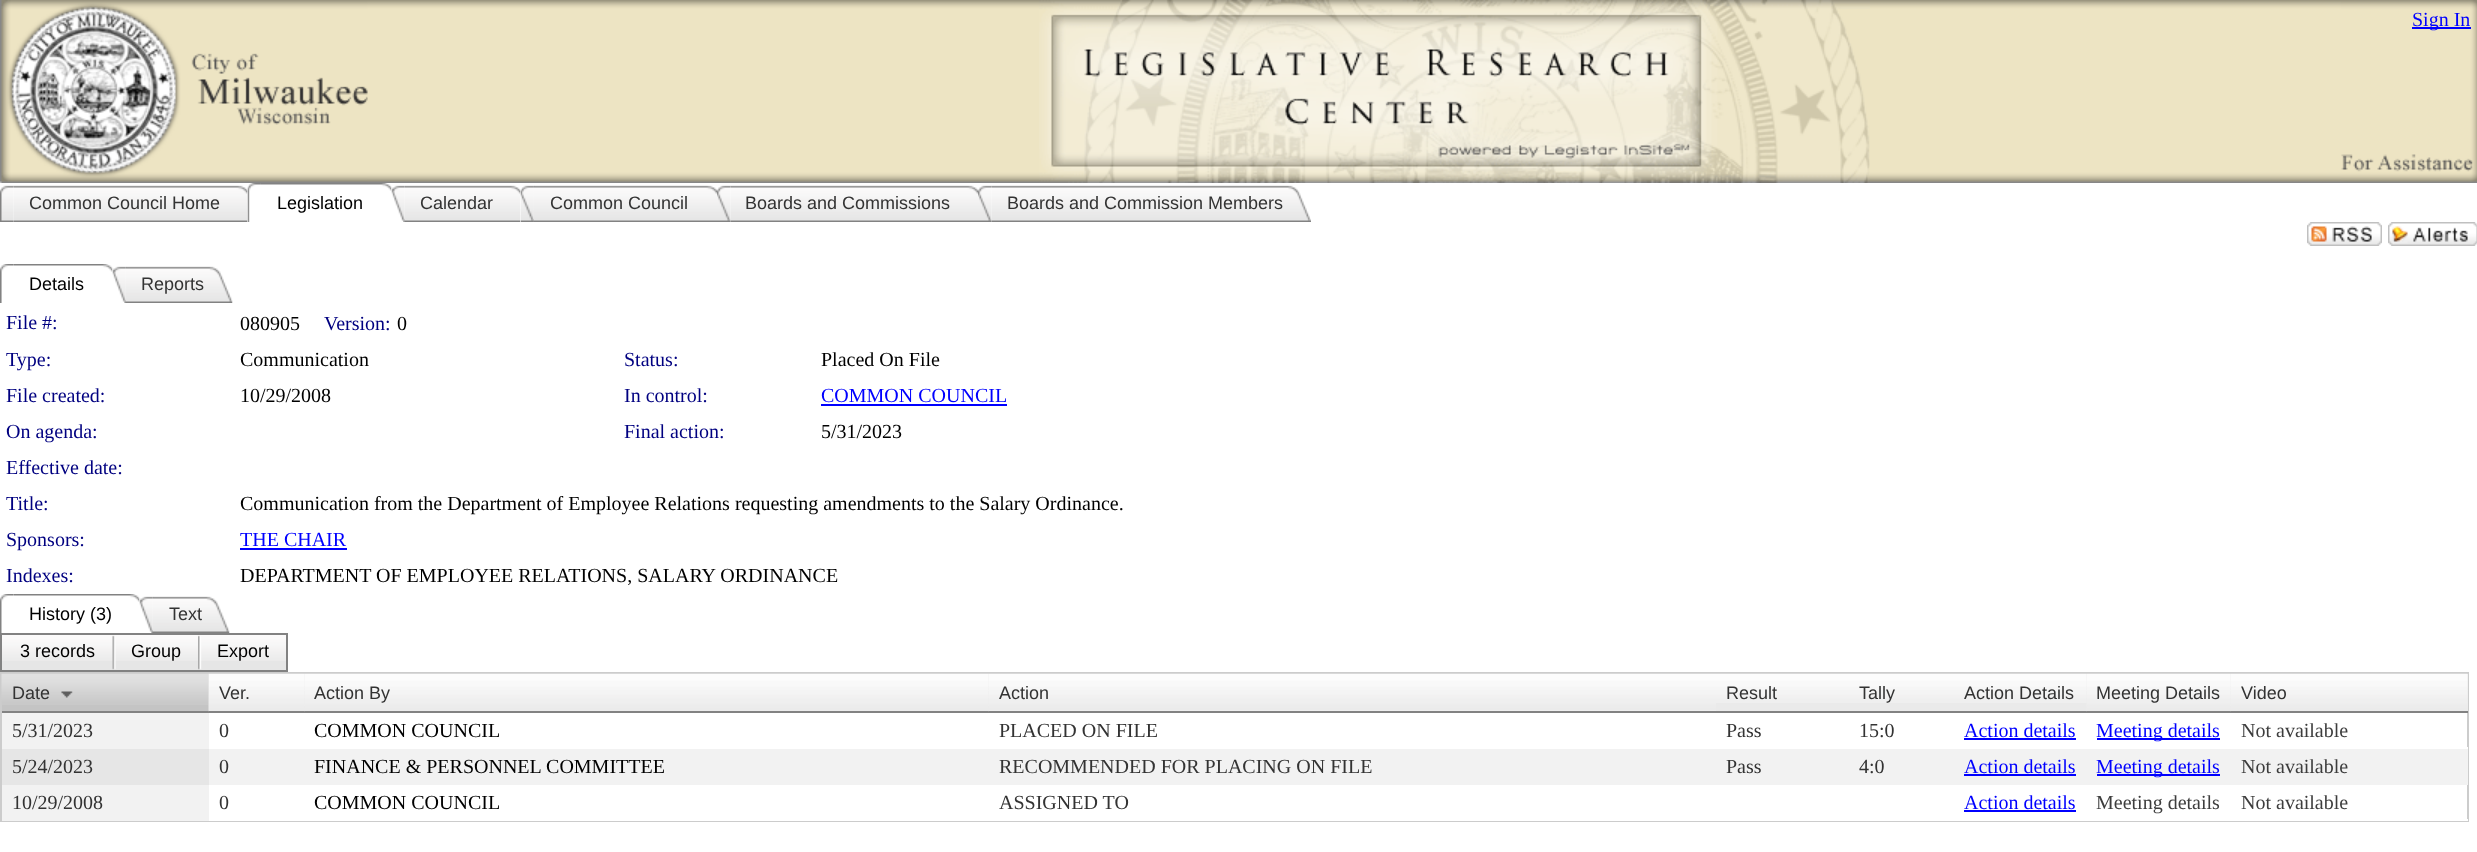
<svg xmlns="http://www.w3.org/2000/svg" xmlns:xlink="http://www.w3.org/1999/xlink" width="2477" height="852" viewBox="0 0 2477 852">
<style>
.cls-1{font:20px Liberation Serif;fill:#0000ff}
.cls-2{font:18px Liberation Sans;fill:#333333}
.cls-3{font:18px Liberation Sans;fill:#000000}
.cls-4{font:20px Liberation Serif;fill:#000080}
.cls-5{font:20px Liberation Serif;fill:#000000}
.cls-6{font:20px Liberation Serif;fill:#333333}
.cls-7{font:20px Liberation Serif;fill:#3d3d3d}
</style>
<rect width="100%" height="100%" fill="#ffffff"/>
<image xlink:href="image0.png" x="367" y="0" width="2110" height="183"/>
<image xlink:href="image1.png" x="0" y="0" width="368" height="183"/>
<image xlink:href="image2.png" x="1039" y="0" width="831" height="183"/>
<image xlink:href="image3.png" x="2341" y="0" width="136" height="182"/>
<rect fill="#0000ff" x="2412" y="27" width="59" height="2"/>
<image xlink:href="image4.png" x="0" y="185" width="14" height="37"/>
<image xlink:href="image5.png" x="13" y="185" width="235" height="37"/>
<image xlink:href="image6.png" x="247" y="183" width="15" height="39"/>
<image xlink:href="image7.png" x="261" y="183" width="131" height="8"/>
<image xlink:href="image8.png" x="391" y="185" width="15" height="37"/>
<image xlink:href="image9.png" x="405" y="185" width="116" height="37"/>
<image xlink:href="image10.png" x="520" y="185" width="15" height="37"/>
<image xlink:href="image11.png" x="534" y="185" width="183" height="37"/>
<image xlink:href="image12.png" x="717" y="185" width="14" height="37"/>
<image xlink:href="image13.png" x="730" y="185" width="248" height="37"/>
<image xlink:href="image14.png" x="978" y="185" width="14" height="37"/>
<image xlink:href="image15.png" x="991" y="185" width="320" height="37"/>
<image xlink:href="image16.png" x="2307" y="222" width="75" height="24"/>
<image xlink:href="image17.png" x="2388" y="222" width="89" height="24"/>
<image xlink:href="image18.png" x="0" y="264" width="14" height="39"/>
<image xlink:href="image19.png" x="13" y="264" width="100" height="8"/>
<image xlink:href="image20.png" x="112" y="266" width="15" height="37"/>
<image xlink:href="image21.png" x="126" y="266" width="107" height="37"/>
<rect fill="#0000ff" x="821" y="404" width="186" height="2"/>
<rect fill="#0000ff" x="240" y="548" width="107" height="2"/>
<image xlink:href="image22.png" x="0" y="594" width="14" height="39"/>
<image xlink:href="image23.png" x="13" y="594" width="127" height="8"/>
<image xlink:href="image20.png" x="139" y="596" width="15" height="37"/>
<image xlink:href="image24.png" x="153" y="596" width="77" height="37"/>
<rect fill="#e6e6e6" x="2" y="661" width="284" height="9"/>
<image xlink:href="image25.png" x="2" y="635" width="284" height="26"/>
<rect fill="none" stroke="#828282" stroke-width="2" x="1" y="634" width="286" height="37"/>
<image xlink:href="image26.png" x="112" y="635" width="4" height="35"/>
<image xlink:href="image27.png" x="198" y="635" width="4" height="35"/>
<rect fill="none" stroke="#cccccc" stroke-width="2" x="1" y="673" width="2467" height="148"/>
<rect fill="#c4c4c4" x="2" y="674" width="207" height="37"/>
<image xlink:href="image28.png" x="1" y="673" width="208" height="32"/>
<rect fill="#828282" x="2" y="711" width="207" height="2"/>
<image xlink:href="image29.png" x="61" y="691" width="12" height="7"/>
<rect fill="#eaeaea" x="209" y="674" width="780" height="37"/>
<image xlink:href="image30.png" x="208" y="673" width="97" height="39"/>
<rect fill="#828282" x="209" y="711" width="96" height="2"/>
<image xlink:href="image31.png" x="304" y="673" width="685" height="39"/>
<rect fill="#828282" x="305" y="711" width="684" height="2"/>
<image xlink:href="image32.png" x="988" y="673" width="728" height="39"/>
<rect fill="#828282" x="989" y="711" width="1098" height="2"/>
<rect fill="#eaeaea" x="1716" y="703" width="237" height="8"/>
<image xlink:href="image33.png" x="1716" y="673" width="132" height="30"/>
<image xlink:href="image34.png" x="1848" y="673" width="105" height="30"/>
<rect fill="#eaeaea" x="1953" y="674" width="515" height="37"/>
<image xlink:href="image35.png" x="1953" y="673" width="134" height="30"/>
<image xlink:href="image36.png" x="2086" y="673" width="145" height="39"/>
<rect fill="#828282" x="2087" y="711" width="144" height="2"/>
<image xlink:href="image37.png" x="2230" y="673" width="238" height="39"/>
<rect fill="#828282" x="2231" y="711" width="237" height="2"/>
<rect fill="#f2f2f2" x="2" y="713" width="207" height="36"/>
<rect fill="#0000ff" x="1964" y="738" width="112" height="2"/>
<rect fill="#0000ff" x="2097" y="738" width="123" height="2"/>
<rect fill="#ffffff" x="2467" y="747" width="1" height="2"/>
<rect fill="#f2f2f2" x="209" y="749" width="2259" height="36"/>
<rect fill="#e6e6e6" x="2" y="749" width="207" height="36"/>
<rect fill="#0000ff" x="1964" y="774" width="112" height="2"/>
<rect fill="#0000ff" x="2097" y="774" width="123" height="2"/>
<rect fill="#f2f2f2" x="2" y="785" width="207" height="36"/>
<rect fill="#ffffff" x="209" y="820" width="2022" height="1"/>
<rect fill="#0000ff" x="1964" y="810" width="112" height="2"/>
<rect fill="#ffffff" x="2231" y="819" width="237" height="2"/>
<text class="cls-1" x="2412" y="26">Sign In</text>
<text class="cls-2" x="29" y="209">Common Council Home</text>
<text class="cls-3" x="277" y="209">Legislation</text>
<text class="cls-2" x="420" y="209">Calendar</text>
<text class="cls-2" x="550" y="209">Common Council</text>
<text class="cls-2" x="745" y="209">Boards and Commissions</text>
<text class="cls-2" x="1007" y="209">Boards and Commission Members</text>
<text class="cls-3" x="29" y="290">Details</text>
<text class="cls-2" x="141" y="290">Reports</text>
<text class="cls-4" x="6" y="329">File #:</text>
<text class="cls-5" x="240" y="330">080905</text>
<text class="cls-4" x="324" y="330">Version:</text>
<text class="cls-5" x="397" y="330">0</text>
<text class="cls-4" x="6" y="366">Type:</text>
<text class="cls-5" x="240" y="366">Communication</text>
<text class="cls-4" x="624" y="366">Status:</text>
<text class="cls-5" x="821" y="366">Placed On File</text>
<text class="cls-4" x="6" y="402">File created:</text>
<text class="cls-5" x="240" y="402">10/29/2008</text>
<text class="cls-4" x="624" y="402">In control:</text>
<text class="cls-1" x="821" y="402">COMMON COUNCIL</text>
<text class="cls-4" x="6" y="438">On agenda:</text>
<text class="cls-4" x="624" y="438">Final action:</text>
<text class="cls-5" x="821" y="438">5/31/2023</text>
<text class="cls-4"><tspan x="6" y="474">Effective date:</tspan><tspan x="6" y="510">Title:</tspan></text>
<text class="cls-5" x="240" y="510">Communication from the Department of Employee Relations requesting amendments to the Salary Ordinance.</text>
<text class="cls-4" x="6" y="546">Sponsors:</text>
<text class="cls-1" x="240" y="546">THE CHAIR</text>
<text class="cls-4" x="6" y="582">Indexes:</text>
<text class="cls-5" x="240" y="582">DEPARTMENT OF EMPLOYEE RELATIONS, SALARY ORDINANCE</text>
<text class="cls-3" x="29" y="620">History (3)</text>
<text class="cls-2" x="169" y="620">Text</text>
<text class="cls-3" x="20" y="657">3 records</text>
<text class="cls-3" x="131" y="657">Group</text>
<text class="cls-3" x="217" y="657">Export</text>
<text class="cls-2" x="12" y="699">Date</text>
<text class="cls-2" x="219" y="699">Ver.</text>
<text class="cls-2" x="314" y="699">Action By</text>
<text class="cls-2" x="999" y="699">Action</text>
<text class="cls-2" x="1726" y="699">Result</text>
<text class="cls-2" x="1859" y="699">Tally</text>
<text class="cls-2" x="1964" y="699">Action Details</text>
<text class="cls-2" x="2096" y="699">Meeting Details</text>
<text class="cls-2" x="2241" y="699">Video</text>
<text class="cls-6" x="12" y="737">5/31/2023</text>
<text class="cls-6" x="219" y="737">0</text>
<text class="cls-5" x="314" y="737">COMMON COUNCIL</text>
<text class="cls-6" x="999" y="737">PLACED ON FILE</text>
<text class="cls-6" x="1726" y="737">Pass</text>
<text class="cls-6" x="1859" y="737">15:0</text>
<text class="cls-1" x="1964" y="737">Action details</text>
<text class="cls-1" x="2096" y="737">Meeting details</text>
<text class="cls-7" x="2241" y="737">Not available</text>
<text class="cls-6" x="12" y="773">5/24/2023</text>
<text class="cls-6" x="219" y="773">0</text>
<text class="cls-5" x="314" y="773">FINANCE &amp; PERSONNEL COMMITTEE</text>
<text class="cls-6" x="999" y="773">RECOMMENDED FOR PLACING ON FILE</text>
<text class="cls-6" x="1726" y="773">Pass</text>
<text class="cls-6" x="1859" y="773">4:0</text>
<text class="cls-1" x="1964" y="773">Action details</text>
<text class="cls-1" x="2096" y="773">Meeting details</text>
<text class="cls-7" x="2241" y="773">Not available</text>
<text class="cls-6" x="12" y="809">10/29/2008</text>
<text class="cls-6" x="219" y="809">0</text>
<text class="cls-5" x="314" y="809">COMMON COUNCIL</text>
<text class="cls-6" x="999" y="809">ASSIGNED TO</text>
<text class="cls-1" x="1964" y="809">Action details</text>
<text class="cls-7" x="2096" y="809">Meeting details</text>
<text class="cls-7" x="2241" y="809">Not available</text>
</svg>
